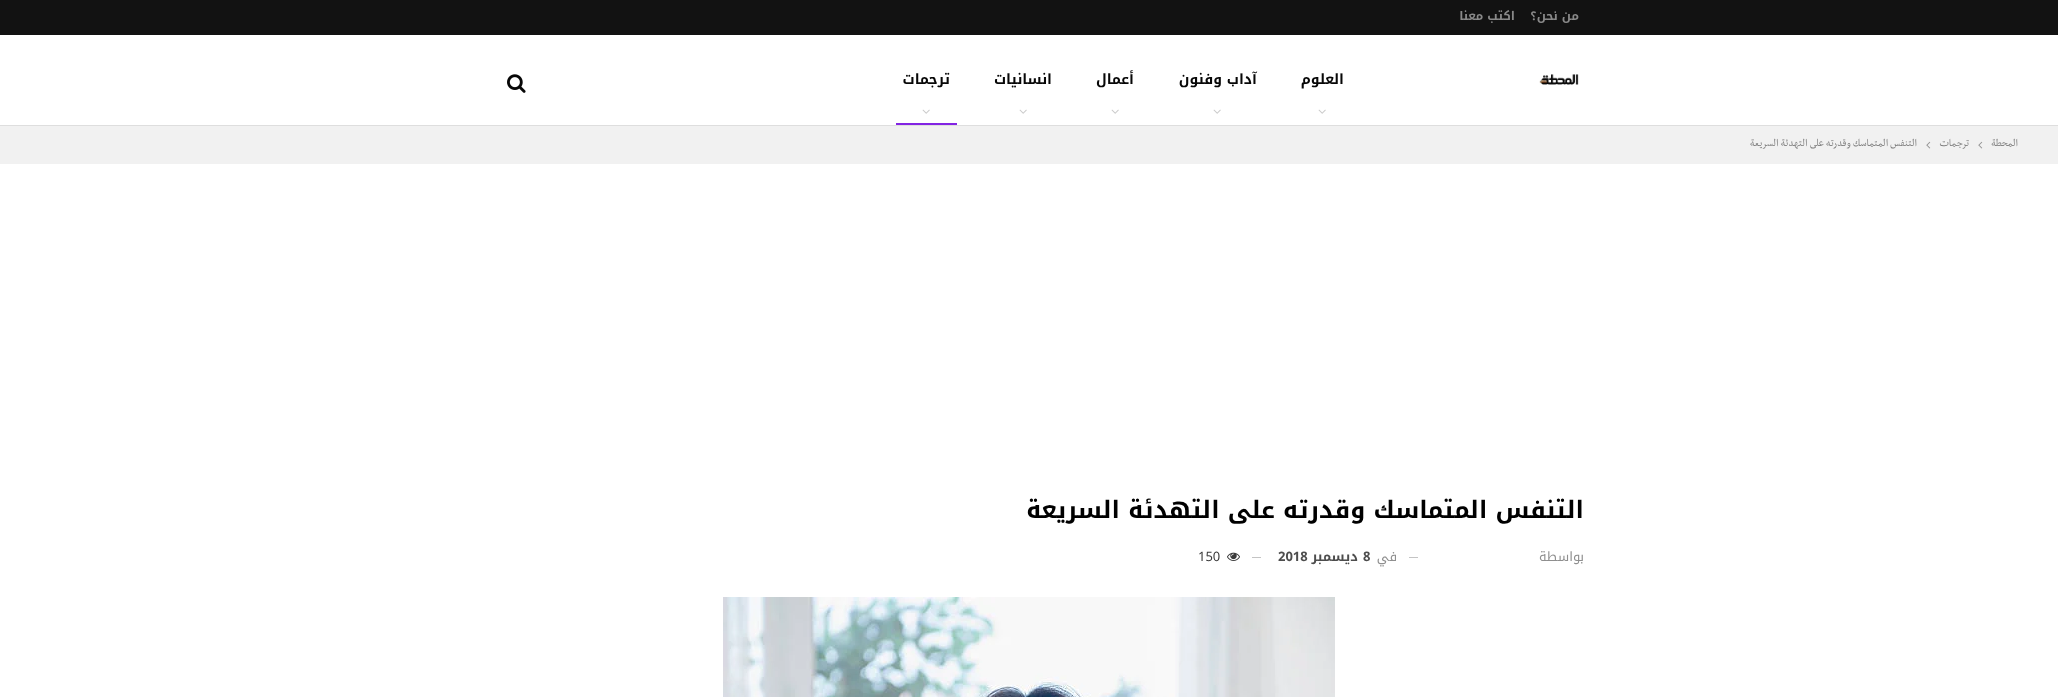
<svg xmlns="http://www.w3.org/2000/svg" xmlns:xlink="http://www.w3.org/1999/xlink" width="2058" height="697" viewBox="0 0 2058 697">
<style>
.cls-1{font:bold 12px Noto Kufi Arabic;direction:rtl;fill:#898989}
.cls-2{font:bold 14px Noto Kufi Arabic;direction:rtl;fill:#070707}
.cls-3{font:12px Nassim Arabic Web;direction:rtl;fill:#808080}
.cls-4{font:bold 24px Noto Kufi Arabic;direction:rtl;fill:#000000}
.cls-5{font:13px Noto Kufi Arabic;direction:rtl;fill:#8f8f8f}
.cls-6{font:bold 13px Noto Kufi Arabic;fill:#4d4d4d}
.cls-7{font:bold 13px Noto Kufi Arabic;direction:rtl;fill:#4d4d4d}
.cls-8{font:13px Noto Kufi Arabic;fill:#3a3a3a}
</style>
<rect width="100%" height="100%" fill="#ffffff"/>
<rect fill="#dedede" x="0" y="125" width="2058" height="1"/>
<rect fill="#121212" x="0" y="0" width="2058" height="35"/>
<image xlink:href="image0.png" x="1539" y="74" width="40" height="11"/>
<image xlink:href="image1.png" x="1318" y="109" width="8" height="5"/>
<image xlink:href="image1.png" x="1213" y="109" width="8" height="5"/>
<image xlink:href="image1.png" x="1111" y="109" width="8" height="5"/>
<image xlink:href="image1.png" x="1019" y="109" width="8" height="5"/>
<image xlink:href="image1.png" x="922" y="109" width="8" height="5"/>
<rect fill="#8224e3" x="896" y="123" width="61" height="2"/>
<image xlink:href="image2.png" x="507" y="74" width="19" height="19"/>
<rect fill="#f1f1f1" x="0" y="126" width="2058" height="38"/>
<image xlink:href="image3.png" x="1978" y="141" width="5" height="8"/>
<image xlink:href="image3.png" x="1926" y="141" width="5" height="8"/>
<rect fill="#c4c4c4" x="1409" y="557" width="9" height="1"/>
<rect fill="#c4c4c4" x="1252" y="557" width="9" height="1"/>
<image xlink:href="image4.png" x="1227" y="552" width="13" height="9"/>
<image xlink:href="image5.png" x="723" y="597" width="612" height="100"/>
<text class="cls-1" x="1579" y="20">من نحن؟</text>
<text class="cls-1" x="1515" y="20">اكتب معنا</text>
<text class="cls-2" x="1344" y="84">العلوم</text>
<text class="cls-2" x="1257" y="84">آداب وفنون</text>
<text class="cls-2" x="1134" y="84">أعمال</text>
<text class="cls-2" x="1052" y="84">انسانيات</text>
<text class="cls-2" x="950" y="84">ترجمات</text>
<text class="cls-3" x="2018" y="146">المحطة</text>
<text class="cls-3" x="1969" y="146">ترجمات</text>
<text class="cls-3" x="1917" y="146">التنفس المتماسك وقدرته على التهدئة السريعة</text>
<text class="cls-4" x="1584" y="518">التنفس المتماسك وقدرته على التهدئة السريعة</text>
<text class="cls-5" x="1584" y="561">بواسطة</text>
<text class="cls-5" x="1397" y="561">في</text>
<text class="cls-6" x="1363" y="561">8</text>
<text class="cls-7" x="1358" y="561">ديسمبر</text>
<text class="cls-6" x="1278" y="561">2018</text>
<text class="cls-8" x="1198" y="561">150</text>
</svg>
